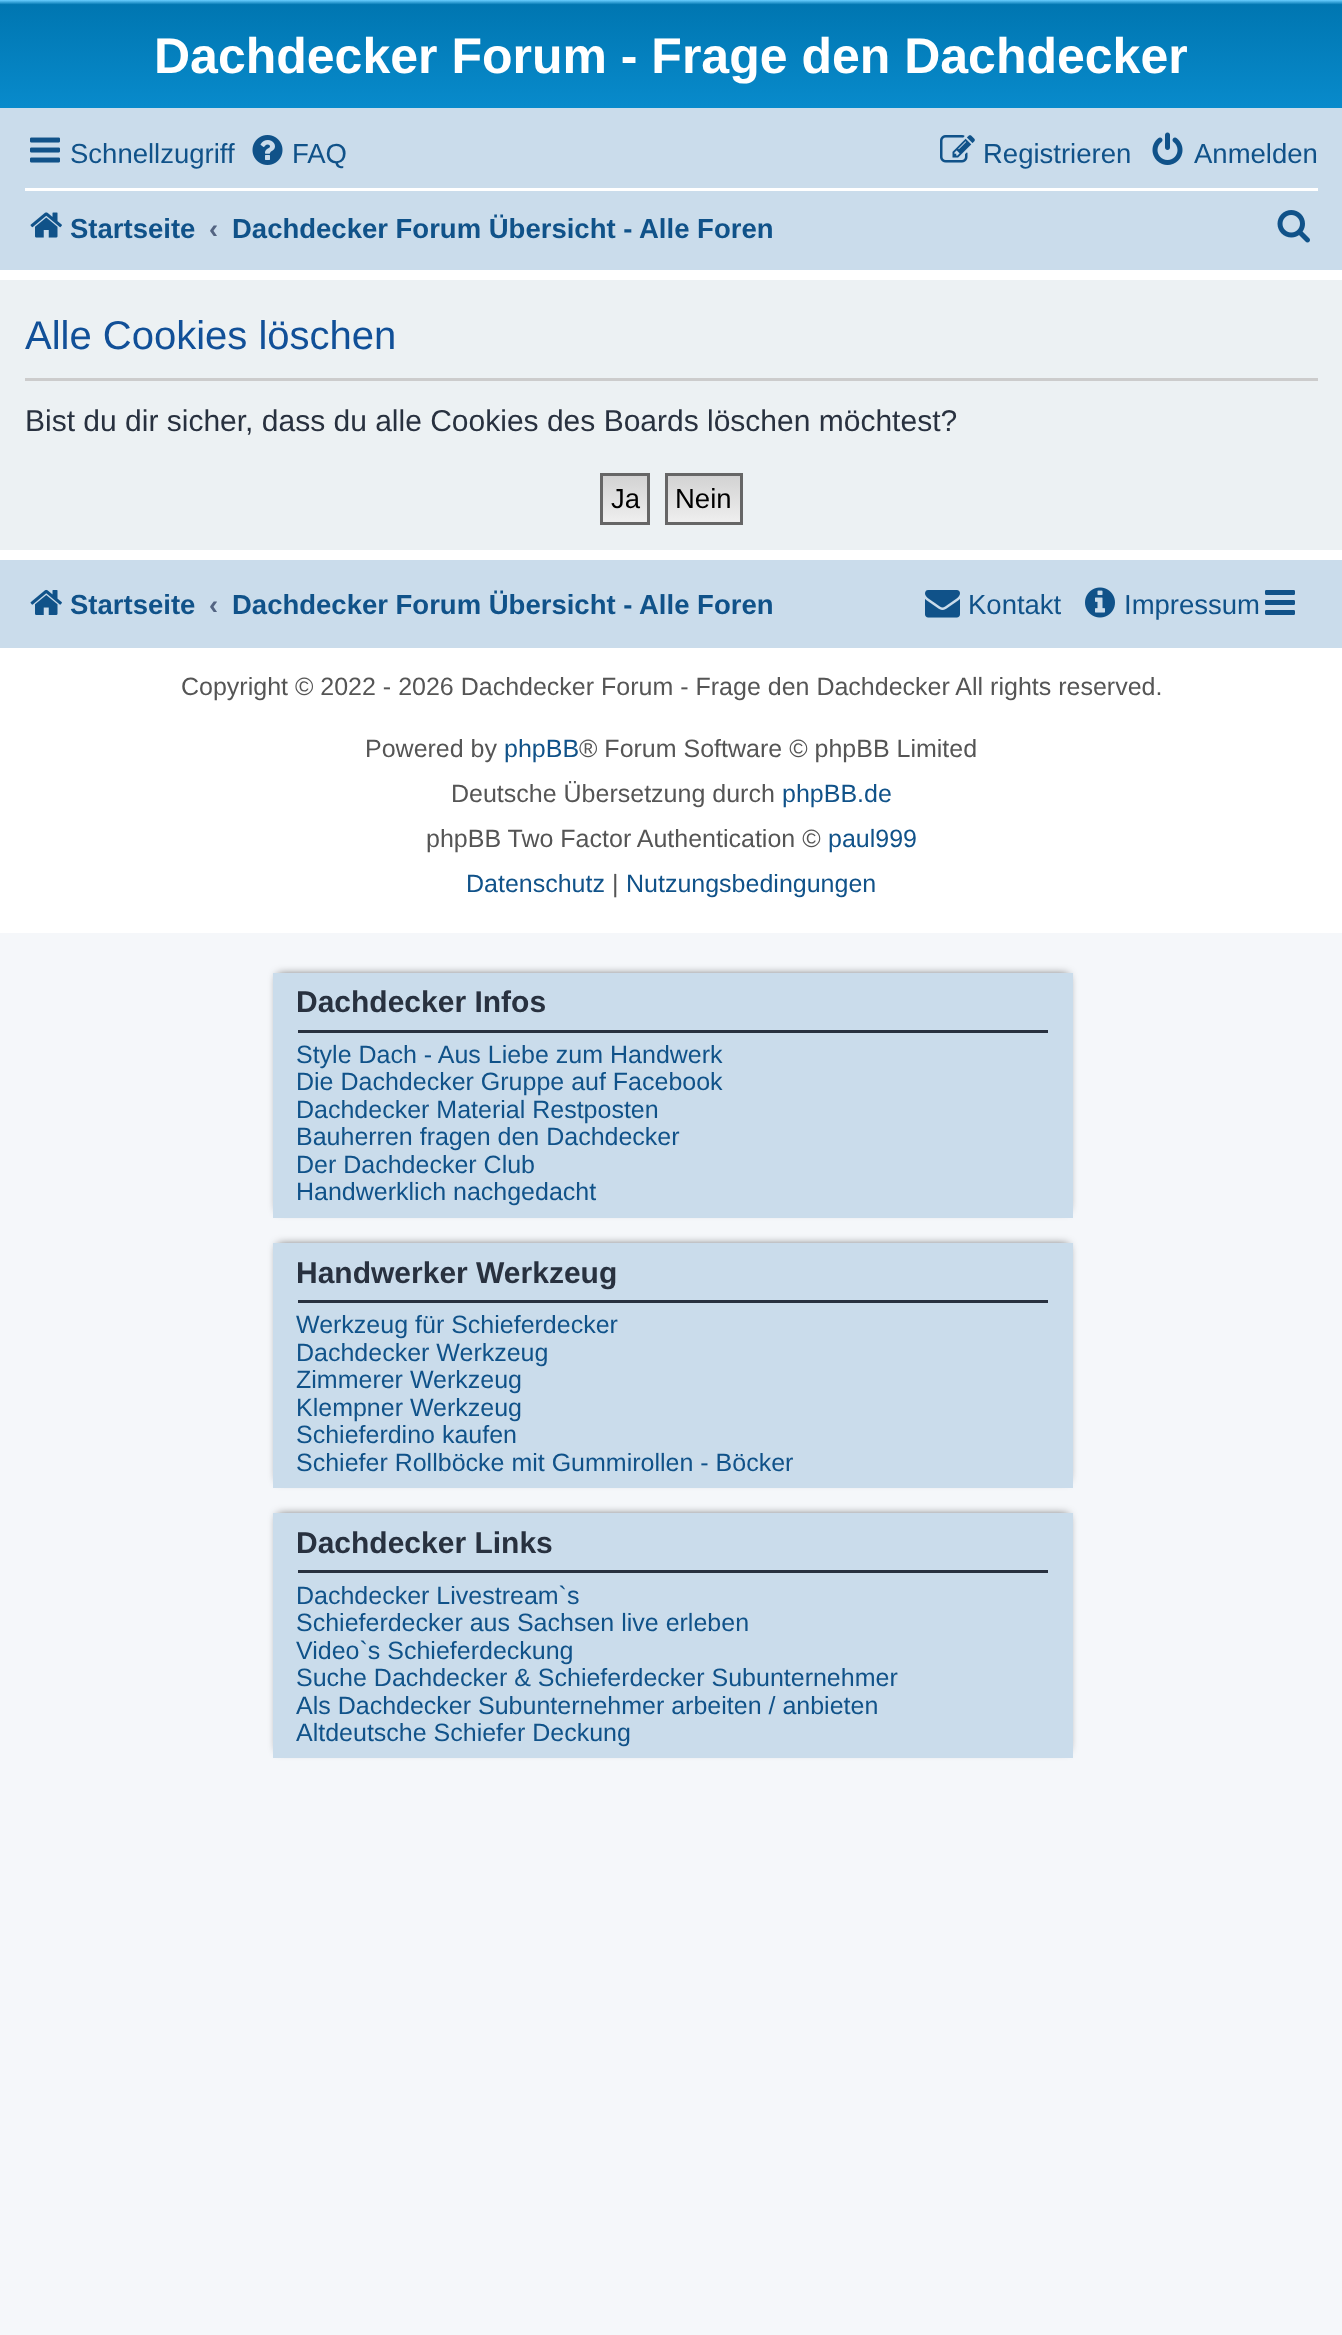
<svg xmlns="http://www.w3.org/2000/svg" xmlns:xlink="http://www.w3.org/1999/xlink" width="1342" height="2335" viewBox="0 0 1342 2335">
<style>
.cls-1{font:bold 50px Liberation Sans;fill:#ffffff}
.cls-2{font:27.5px Liberation Sans;fill:#105289}
.cls-3{font:bold 27.5px Liberation Sans;fill:#105289}
.cls-4{font:bold 27.5px Liberation Sans;fill:#536482}
.cls-5{font:40px Liberation Sans;fill:#115098}
.cls-6{font:30px Liberation Sans;fill:#28313f}
.cls-7{font:27.5px Liberation Sans;fill:#000000}
.cls-8{font:25px Liberation Sans;fill:#555555}
.cls-9{font:25px Liberation Sans;fill:#105289}
.cls-10{font:bold 30px Liberation Sans;fill:#28313f}
</style>
<defs>
<linearGradient id="g1" gradientUnits="userSpaceOnUse" x1="671" y1="0" x2="671" y2="230"><stop offset="0" stop-color="#6aceff"/><stop offset="0.02" stop-color="#0076b1"/><stop offset="1" stop-color="#12a3eb"/></linearGradient>
<linearGradient id="g2" gradientUnits="userSpaceOnUse" x1="625" y1="475" x2="625" y2="523"><stop offset="0" stop-color="#d2d2d2"/><stop offset="1" stop-color="#efefef"/></linearGradient>
<linearGradient id="g3" gradientUnits="userSpaceOnUse" x1="704" y1="475" x2="704" y2="523"><stop offset="0" stop-color="#d2d2d2"/><stop offset="1" stop-color="#efefef"/></linearGradient>
</defs>
<rect width="100%" height="100%" fill="#f5f7fa"/>
<rect fill="#ffffff" x="0" y="270" width="1342" height="663"/>
<rect fill="url(#g1)" x="0" y="0" width="1342" height="108"/>
<rect fill="#cadceb" x="0" y="108" width="1342" height="162"/>
<image xlink:href="image0.png" x="30" y="137" width="30" height="26"/>
<image xlink:href="image1.png" x="252" y="135" width="31" height="30"/>
<image xlink:href="image2.png" x="940" y="135" width="35" height="28"/>
<image xlink:href="image3.png" x="1152" y="132" width="31" height="33"/>
<rect fill="#ffffff" x="25" y="188" width="1293" height="3"/>
<image xlink:href="image4.png" x="30" y="212" width="32" height="26"/>
<image xlink:href="image5.png" x="1277" y="210" width="33" height="33"/>
<rect fill="#ecf1f3" x="0" y="280" width="1342" height="270"/>
<rect fill="#cccccc" x="25" y="378" width="1293" height="3"/>
<rect fill="url(#g2)" x="603" y="476" width="44" height="46"/>
<rect fill="none" stroke="#666666" stroke-width="3" x="601.5" y="474.5" width="47" height="49"/>
<rect fill="url(#g3)" x="668" y="476" width="72" height="46"/>
<rect fill="none" stroke="#666666" stroke-width="3" x="666.5" y="474.5" width="75" height="49"/>
<rect fill="#cadceb" x="0" y="560" width="1342" height="88"/>
<image xlink:href="image6.png" x="30" y="589" width="32" height="26"/>
<image xlink:href="image7.png" x="925" y="590" width="35" height="28"/>
<image xlink:href="image8.png" x="1085" y="587" width="30" height="31"/>
<image xlink:href="image9.png" x="1265" y="590" width="30" height="25"/>
<rect fill="#020202" fill-opacity="0.7" filter="blur(5px)" x="278" y="975" width="790" height="235"/>
<rect fill="#cadceb" x="273" y="973" width="800" height="245"/>
<rect fill="#28313f" x="298" y="1030" width="750" height="3"/>
<rect fill="#020202" fill-opacity="0.7" filter="blur(5px)" x="278" y="1245" width="790" height="235"/>
<rect fill="#cadceb" x="273" y="1243" width="800" height="245"/>
<rect fill="#28313f" x="298" y="1300" width="750" height="3"/>
<rect fill="#020202" fill-opacity="0.7" filter="blur(5px)" x="278" y="1515" width="790" height="235"/>
<rect fill="#cadceb" x="273" y="1513" width="800" height="245"/>
<rect fill="#28313f" x="298" y="1570" width="750" height="3"/>
<text class="cls-1" x="154" y="73">Dachdecker Forum - Frage den Dachdecker</text>
<text class="cls-2" x="70" y="163">Schnellzugriff</text>
<text class="cls-2" x="292" y="163">FAQ</text>
<text class="cls-2" x="983" y="163">Registrieren</text>
<text class="cls-2" x="1194" y="163">Anmelden</text>
<text class="cls-3" x="70" y="238">Startseite</text>
<text class="cls-4" x="209" y="238">‹</text>
<text class="cls-3" x="232" y="238">Dachdecker Forum Übersicht - Alle Foren</text>
<text class="cls-5" x="25" y="349">Alle Cookies löschen</text>
<text class="cls-6" x="25" y="431">Bist du dir sicher, dass du alle Cookies des Boards löschen möchtest?</text>
<text class="cls-7" x="611" y="508">Ja</text>
<text class="cls-7" x="675" y="508">Nein</text>
<text class="cls-3" x="70" y="614">Startseite</text>
<text class="cls-4" x="209" y="614">‹</text>
<text class="cls-3" x="232" y="614">Dachdecker Forum Übersicht - Alle Foren</text>
<text class="cls-2" x="968" y="614">Kontakt</text>
<text class="cls-2" x="1124" y="614">Impressum</text>
<text class="cls-8" x="181" y="695">Copyright © 2022 - 2026 Dachdecker Forum - Frage den Dachdecker All rights reserved.</text>
<text class="cls-8" x="365" y="757">Powered by</text>
<text class="cls-9" x="504" y="757">phpBB</text>
<text class="cls-8" x="579" y="757">® Forum Software © phpBB Limited</text>
<text class="cls-8" x="451" y="802">Deutsche Übersetzung durch</text>
<text class="cls-9" x="782" y="802">phpBB.de</text>
<text class="cls-8" x="426" y="847">phpBB Two Factor Authentication ©</text>
<text class="cls-9" x="828" y="847">paul999</text>
<text class="cls-9" x="466" y="892">Datenschutz</text>
<text class="cls-8" x="612" y="892">|</text>
<text class="cls-9" x="626" y="892">Nutzungsbedingungen</text>
<text class="cls-10" x="296" y="1012">Dachdecker Infos</text>
<text class="cls-9"><tspan x="296" y="1063">Style Dach - Aus Liebe zum Handwerk</tspan><tspan x="296" y="1090">Die Dachdecker Gruppe auf Facebook</tspan><tspan x="296" y="1118">Dachdecker Material Restposten</tspan><tspan x="296" y="1145">Bauherren fragen den Dachdecker</tspan><tspan x="296" y="1173">Der Dachdecker Club</tspan><tspan x="296" y="1200">Handwerklich nachgedacht</tspan></text>
<text class="cls-10" x="296" y="1283">Handwerker Werkzeug</text>
<text class="cls-9"><tspan x="296" y="1333">Werkzeug für Schieferdecker</tspan><tspan x="296" y="1361">Dachdecker Werkzeug</tspan><tspan x="296" y="1388">Zimmerer Werkzeug</tspan><tspan x="296" y="1416">Klempner Werkzeug</tspan><tspan x="296" y="1443">Schieferdino kaufen</tspan><tspan x="296" y="1471">Schiefer Rollböcke mit Gummirollen - Böcker</tspan></text>
<text class="cls-10" x="296" y="1553">Dachdecker Links</text>
<text class="cls-9"><tspan x="296" y="1604">Dachdecker Livestream`s</tspan><tspan x="296" y="1631">Schieferdecker aus Sachsen live erleben</tspan><tspan x="296" y="1659">Video`s Schieferdeckung</tspan><tspan x="296" y="1686">Suche Dachdecker &amp; Schieferdecker Subunternehmer</tspan><tspan x="296" y="1714">Als Dachdecker Subunternehmer arbeiten / anbieten</tspan><tspan x="296" y="1741">Altdeutsche Schiefer Deckung</tspan></text>
</svg>
